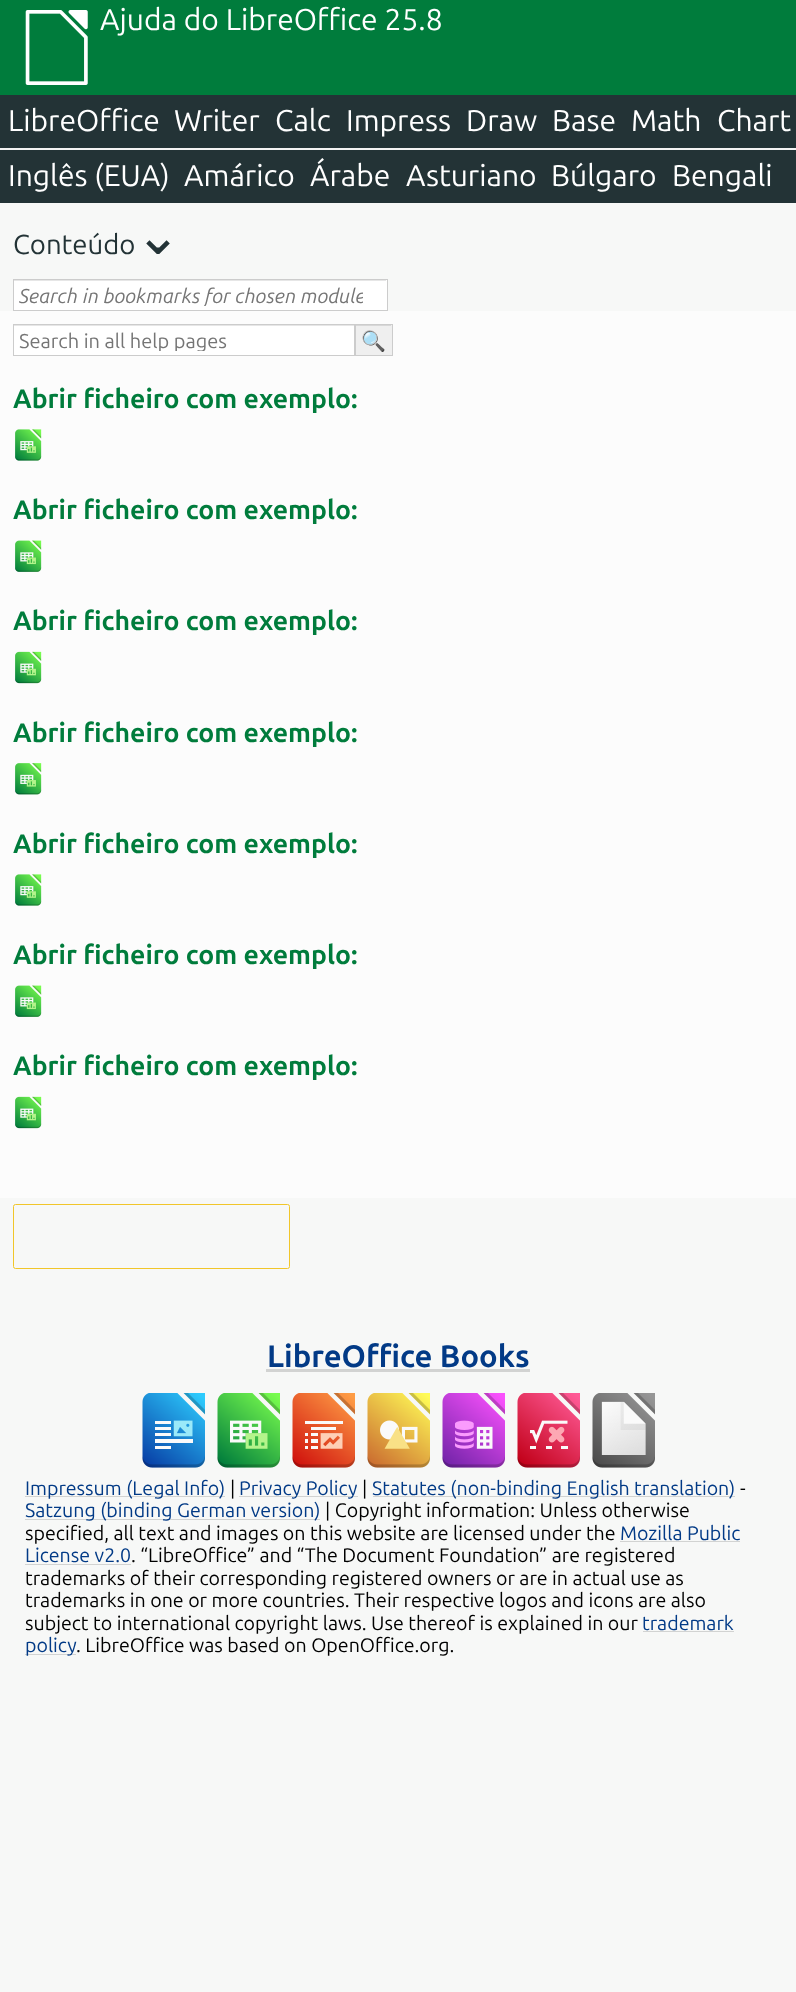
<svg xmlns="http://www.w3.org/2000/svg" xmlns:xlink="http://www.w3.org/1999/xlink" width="796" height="1992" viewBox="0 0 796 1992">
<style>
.cls-1{font:30px Ubuntu;fill:#ffffff}
.cls-2{font:27.5px Ubuntu;fill:#233336}
.cls-3{font:55px DejaVu Sans;fill:#233336}
.cls-4{font:italic 20px Ubuntu;fill:#757575}
.cls-5{font:20px Ubuntu;fill:#757575}
.cls-6{font:20px Noto Color Emoji;fill:#000000}
.cls-7{font:bold 26.6px Ubuntu;fill:#007c3c}
.cls-8{font:bold 31px Ubuntu;fill:#023a86}
.cls-9{font:19.6px Ubuntu;fill:#023a86}
.cls-10{font:19.6px Ubuntu;fill:#000000}
</style>
<defs>
<clipPath id="clip1"><rect x="19" y="284" width="344" height="22"/></clipPath>
<clipPath id="clip2"><rect x="19" y="329" width="311" height="22"/></clipPath>
</defs>
<rect width="100%" height="100%" fill="#f7f8f7"/>
<rect fill="#007c3c" x="0" y="0" width="796" height="95"/>
<image xlink:href="image0.png" x="25" y="10" width="63" height="75"/>
<rect fill="#233336" x="0" y="95" width="796" height="53"/>
<rect fill="#f3f3f3" x="0" y="148" width="796" height="2"/>
<rect fill="#233336" x="0" y="150" width="796" height="53"/>
<rect fill="#ffffff" x="14" y="280" width="373" height="30"/>
<rect fill="#e6e6e6" x="14" y="280" width="372" height="1"/>
<rect fill="none" stroke="#cccccc" x="13.5" y="279.5" width="374" height="31"/>
<rect fill="#fcfcfc" x="0" y="311" width="796" height="887"/>
<rect fill="#ffffff" x="14" y="326" width="340" height="29"/>
<rect fill="#e6e6e6" x="14" y="325" width="340" height="1"/>
<rect fill="none" stroke="#cccccc" x="13.5" y="324.5" width="341" height="31"/>
<rect fill="#efefef" x="356" y="325" width="36" height="30"/>
<rect fill="#d7d7d7" x="356" y="325" width="35" height="1"/>
<rect fill="none" stroke="#cccccc" x="355.5" y="324.5" width="37" height="31"/>
<image xlink:href="image1.png" x="15" y="429" width="27" height="32"/>
<image xlink:href="image2.png" x="15" y="540" width="27" height="32"/>
<image xlink:href="image3.png" x="15" y="651" width="27" height="33"/>
<image xlink:href="image4.png" x="15" y="763" width="27" height="32"/>
<image xlink:href="image1.png" x="15" y="874" width="27" height="32"/>
<image xlink:href="image2.png" x="15" y="985" width="27" height="32"/>
<image xlink:href="image3.png" x="15" y="1096" width="27" height="33"/>
<rect fill="none" stroke="#f1c62a" x="13.5" y="1204.5" width="276" height="64" rx="2"/>
<rect fill="#d2d3d2" x="266" y="1369" width="264" height="3"/>
<image xlink:href="image5.png" x="142" y="1393" width="63" height="75"/>
<image xlink:href="image6.png" x="217" y="1393" width="63" height="75"/>
<image xlink:href="image7.png" x="292" y="1393" width="63" height="75"/>
<image xlink:href="image8.png" x="367" y="1393" width="63" height="75"/>
<image xlink:href="image9.png" x="442" y="1393" width="63" height="75"/>
<image xlink:href="image10.png" x="517" y="1393" width="63" height="75"/>
<image xlink:href="image11.png" x="592" y="1393" width="63" height="75"/>
<rect fill="#d2d3d2" x="25" y="1496" width="200" height="1"/>
<rect fill="#d2d3d2" x="239" y="1496" width="119" height="1"/>
<rect fill="#d2d3d2" x="373" y="1496" width="362" height="1"/>
<rect fill="#d2d3d2" x="25" y="1519" width="295" height="1"/>
<rect fill="#d2d3d2" x="620" y="1541" width="120" height="1"/>
<rect fill="#d2d3d2" x="25" y="1564" width="106" height="1"/>
<rect fill="#d2d3d2" x="643" y="1631" width="91" height="1"/>
<rect fill="#d2d3d2" x="25" y="1654" width="51" height="1"/>
<text class="cls-1" x="100" y="30">Ajuda do LibreOffice 25.8</text>
<text class="cls-1" x="8" y="131">LibreOffice</text>
<text class="cls-1" x="174" y="131">Writer</text>
<text class="cls-1" x="275" y="131">Calc</text>
<text class="cls-1" x="346" y="131">Impress</text>
<text class="cls-1" x="466" y="131">Draw</text>
<text class="cls-1" x="552" y="131">Base</text>
<text class="cls-1" x="631" y="131">Math</text>
<text class="cls-1" x="717" y="131">Chart</text>
<text class="cls-1" x="8" y="186">Inglês (EUA)</text>
<text class="cls-1" x="184" y="186">Amárico</text>
<text class="cls-1" x="310" y="186">Árabe</text>
<text class="cls-1" x="406" y="186">Asturiano</text>
<text class="cls-1" x="551" y="186">Búlgaro</text>
<text class="cls-1" x="672" y="186">Bengali</text>
<text class="cls-2" x="13" y="254">Conteúdo</text>
<text class="cls-3" x="135" y="254">⌄</text>
<g clip-path="url(#clip1)">
<text class="cls-4" x="19" y="303">Search in bookmarks for chosen module</text>
</g>
<g clip-path="url(#clip2)">
<text class="cls-5" x="19" y="348">Search in all help pages</text>
</g>
<text class="cls-6" x="361" y="348">🔍</text>
<text class="cls-7" x="13" y="408">Abrir ficheiro com exemplo:</text>
<text class="cls-7" x="13" y="519">Abrir ficheiro com exemplo:</text>
<text class="cls-7" x="13" y="630">Abrir ficheiro com exemplo:</text>
<text class="cls-7" x="13" y="742">Abrir ficheiro com exemplo:</text>
<text class="cls-7" x="13" y="853">Abrir ficheiro com exemplo:</text>
<text class="cls-7" x="13" y="964">Abrir ficheiro com exemplo:</text>
<text class="cls-7" x="13" y="1075">Abrir ficheiro com exemplo:</text>
<text class="cls-8" x="267" y="1367">LibreOffice Books</text>
<text class="cls-9" x="25" y="1495">Impressum (Legal Info)</text>
<text class="cls-10" x="230" y="1495">|</text>
<text class="cls-9" x="239" y="1495">Privacy Policy</text>
<text class="cls-10" x="362" y="1495">|</text>
<text class="cls-9" x="372" y="1495">Statutes (non-binding English translation)</text>
<text class="cls-10" x="740" y="1495">-</text>
<text class="cls-9" x="25" y="1517">Satzung (binding German version)</text>
<text class="cls-10" x="325" y="1517">| Copyright information: Unless otherwise</text>
<text class="cls-10" x="25" y="1540">specified, all text and images on this website are licensed under the</text>
<text class="cls-9" x="620" y="1540">Mozilla Public</text>
<text class="cls-9" x="25" y="1562">License v2.0</text>
<text class="cls-10" x="131" y="1562">. “LibreOffice” and “The Document Foundation” are registered</text>
<text class="cls-10"><tspan x="25" y="1585">trademarks of their corresponding registered owners or are in actual use as</tspan><tspan x="25" y="1607">trademarks in one or more countries. Their respective logos and icons are also</tspan><tspan x="25" y="1630">subject to international copyright laws. Use thereof is explained in our</tspan></text>
<text class="cls-9" x="642" y="1630">trademark</text>
<text class="cls-9" x="25" y="1652">policy</text>
<text class="cls-10" x="76" y="1652">. LibreOffice was based on OpenOffice.org.</text>
</svg>
